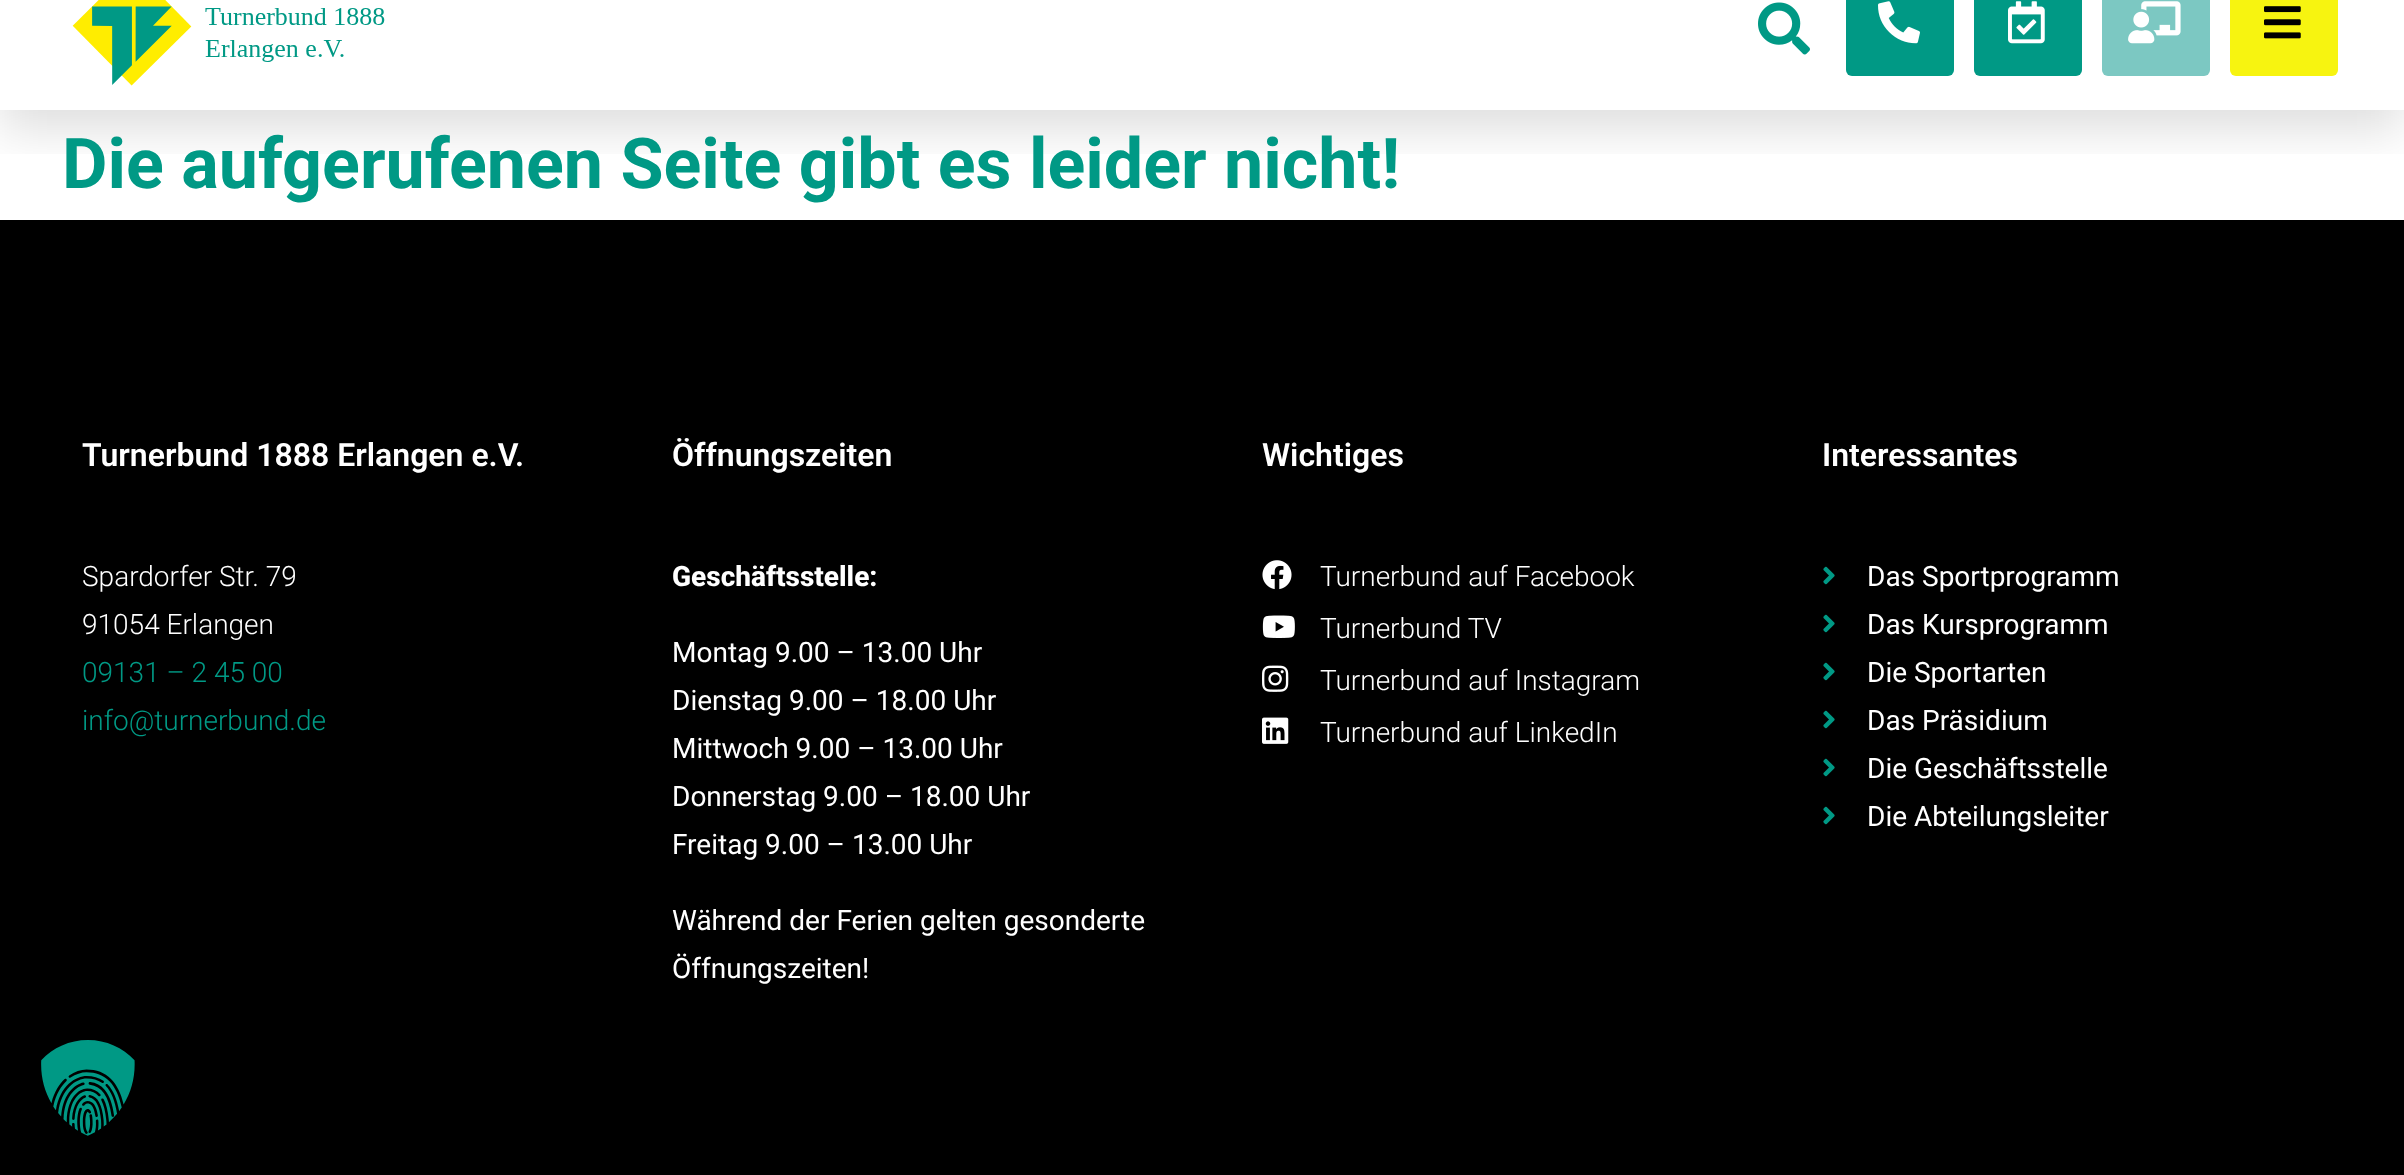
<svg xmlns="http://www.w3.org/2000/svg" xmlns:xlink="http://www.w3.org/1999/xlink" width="2404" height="1175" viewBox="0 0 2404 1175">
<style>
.cls-1{font:bold 70px Roboto;fill:#009985}
.cls-2{font:600 32px Roboto;fill:#ffffff}
.cls-3{font:300 28px Roboto;fill:#ffffff}
.cls-4{font:300 28px Roboto;fill:#009985}
.cls-5{font:800 28px Roboto;fill:#ffffff}
.cls-6{font:28px Roboto;fill:#ffffff}
</style>
<defs>
<clipPath id="clip1"><rect x="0" y="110" width="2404" height="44"/></clipPath>
</defs>
<rect width="100%" height="100%" fill="#ffffff"/>
<g clip-path="url(#clip1)">
<rect fill="#000000" fill-opacity="0.13" filter="blur(24px)" x="0" y="-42" width="2404" height="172"/>
</g>
<image xlink:href="image0.png" x="72" y="0" width="313" height="86"/>
<image xlink:href="image1.png" x="1758" y="2" width="52" height="53"/>
<rect fill="#009985" x="1846" y="-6" width="108" height="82" rx="6"/>
<image xlink:href="image2.png" x="1878" y="1" width="42" height="43"/>
<rect fill="#009985" x="1974" y="-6" width="108" height="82" rx="6"/>
<image xlink:href="image3.png" x="2008" y="1" width="37" height="43"/>
<rect fill="#7cc8c2" x="2102" y="-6" width="108" height="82" rx="6"/>
<image xlink:href="image4.png" x="2128" y="1" width="53" height="43"/>
<rect fill="#f7f410" x="2230" y="-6" width="108" height="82" rx="6"/>
<image xlink:href="image5.png" x="2264" y="6" width="37" height="33"/>
<rect fill="#000000" x="0" y="220" width="2404" height="955"/>
<image xlink:href="image6.png" x="1262" y="560" width="30" height="30"/>
<image xlink:href="image7.png" x="1262" y="615" width="33" height="23"/>
<image xlink:href="image8.png" x="1262" y="665" width="27" height="27"/>
<image xlink:href="image9.png" x="1262" y="717" width="27" height="27"/>
<image xlink:href="image10.png" x="1823" y="566" width="12" height="19"/>
<image xlink:href="image10.png" x="1823" y="614" width="12" height="19"/>
<image xlink:href="image10.png" x="1823" y="662" width="12" height="19"/>
<image xlink:href="image10.png" x="1823" y="710" width="12" height="19"/>
<image xlink:href="image10.png" x="1823" y="758" width="12" height="19"/>
<image xlink:href="image10.png" x="1823" y="806" width="12" height="19"/>
<image xlink:href="image11.png" x="41" y="1040" width="94" height="96"/>
<text class="cls-1" x="62" y="188">Die aufgerufenen Seite gibt es leider nicht!</text>
<text class="cls-2" x="82" y="466">Turnerbund 1888 Erlangen e.V.</text>
<text class="cls-3"><tspan x="82" y="586">Spardorfer Str. 79</tspan><tspan x="82" y="634">91054 Erlangen</tspan></text>
<text class="cls-4"><tspan x="82" y="682">09131 – 2 45 00</tspan><tspan x="82" y="730">info@turnerbund.de</tspan></text>
<text class="cls-2" x="672" y="466">Öffnungszeiten</text>
<text class="cls-5" x="672" y="586">Geschäftsstelle:</text>
<text class="cls-6"><tspan x="672" y="662">Montag 9.00 – 13.00 Uhr</tspan><tspan x="672" y="710">Dienstag 9.00 – 18.00 Uhr</tspan><tspan x="672" y="758">Mittwoch 9.00 – 13.00 Uhr</tspan><tspan x="672" y="806">Donnerstag 9.00 – 18.00 Uhr</tspan><tspan x="672" y="854">Freitag 9.00 – 13.00 Uhr</tspan></text>
<text class="cls-6"><tspan x="672" y="930">Während der Ferien gelten gesonderte</tspan><tspan x="672" y="978">Öffnungszeiten!</tspan></text>
<text class="cls-2" x="1262" y="466">Wichtiges</text>
<text class="cls-3"><tspan x="1320" y="586">Turnerbund auf Facebook</tspan><tspan x="1320" y="638">Turnerbund TV</tspan><tspan x="1320" y="690">Turnerbund auf Instagram</tspan><tspan x="1320" y="742">Turnerbund auf LinkedIn</tspan></text>
<text class="cls-2" x="1822" y="466">Interessantes</text>
<text class="cls-6"><tspan x="1867" y="586">Das Sportprogramm</tspan><tspan x="1867" y="634">Das Kursprogramm</tspan><tspan x="1867" y="682">Die Sportarten</tspan><tspan x="1867" y="730">Das Präsidium</tspan><tspan x="1867" y="778">Die Geschäftsstelle</tspan><tspan x="1867" y="826">Die Abteilungsleiter</tspan></text>
</svg>
